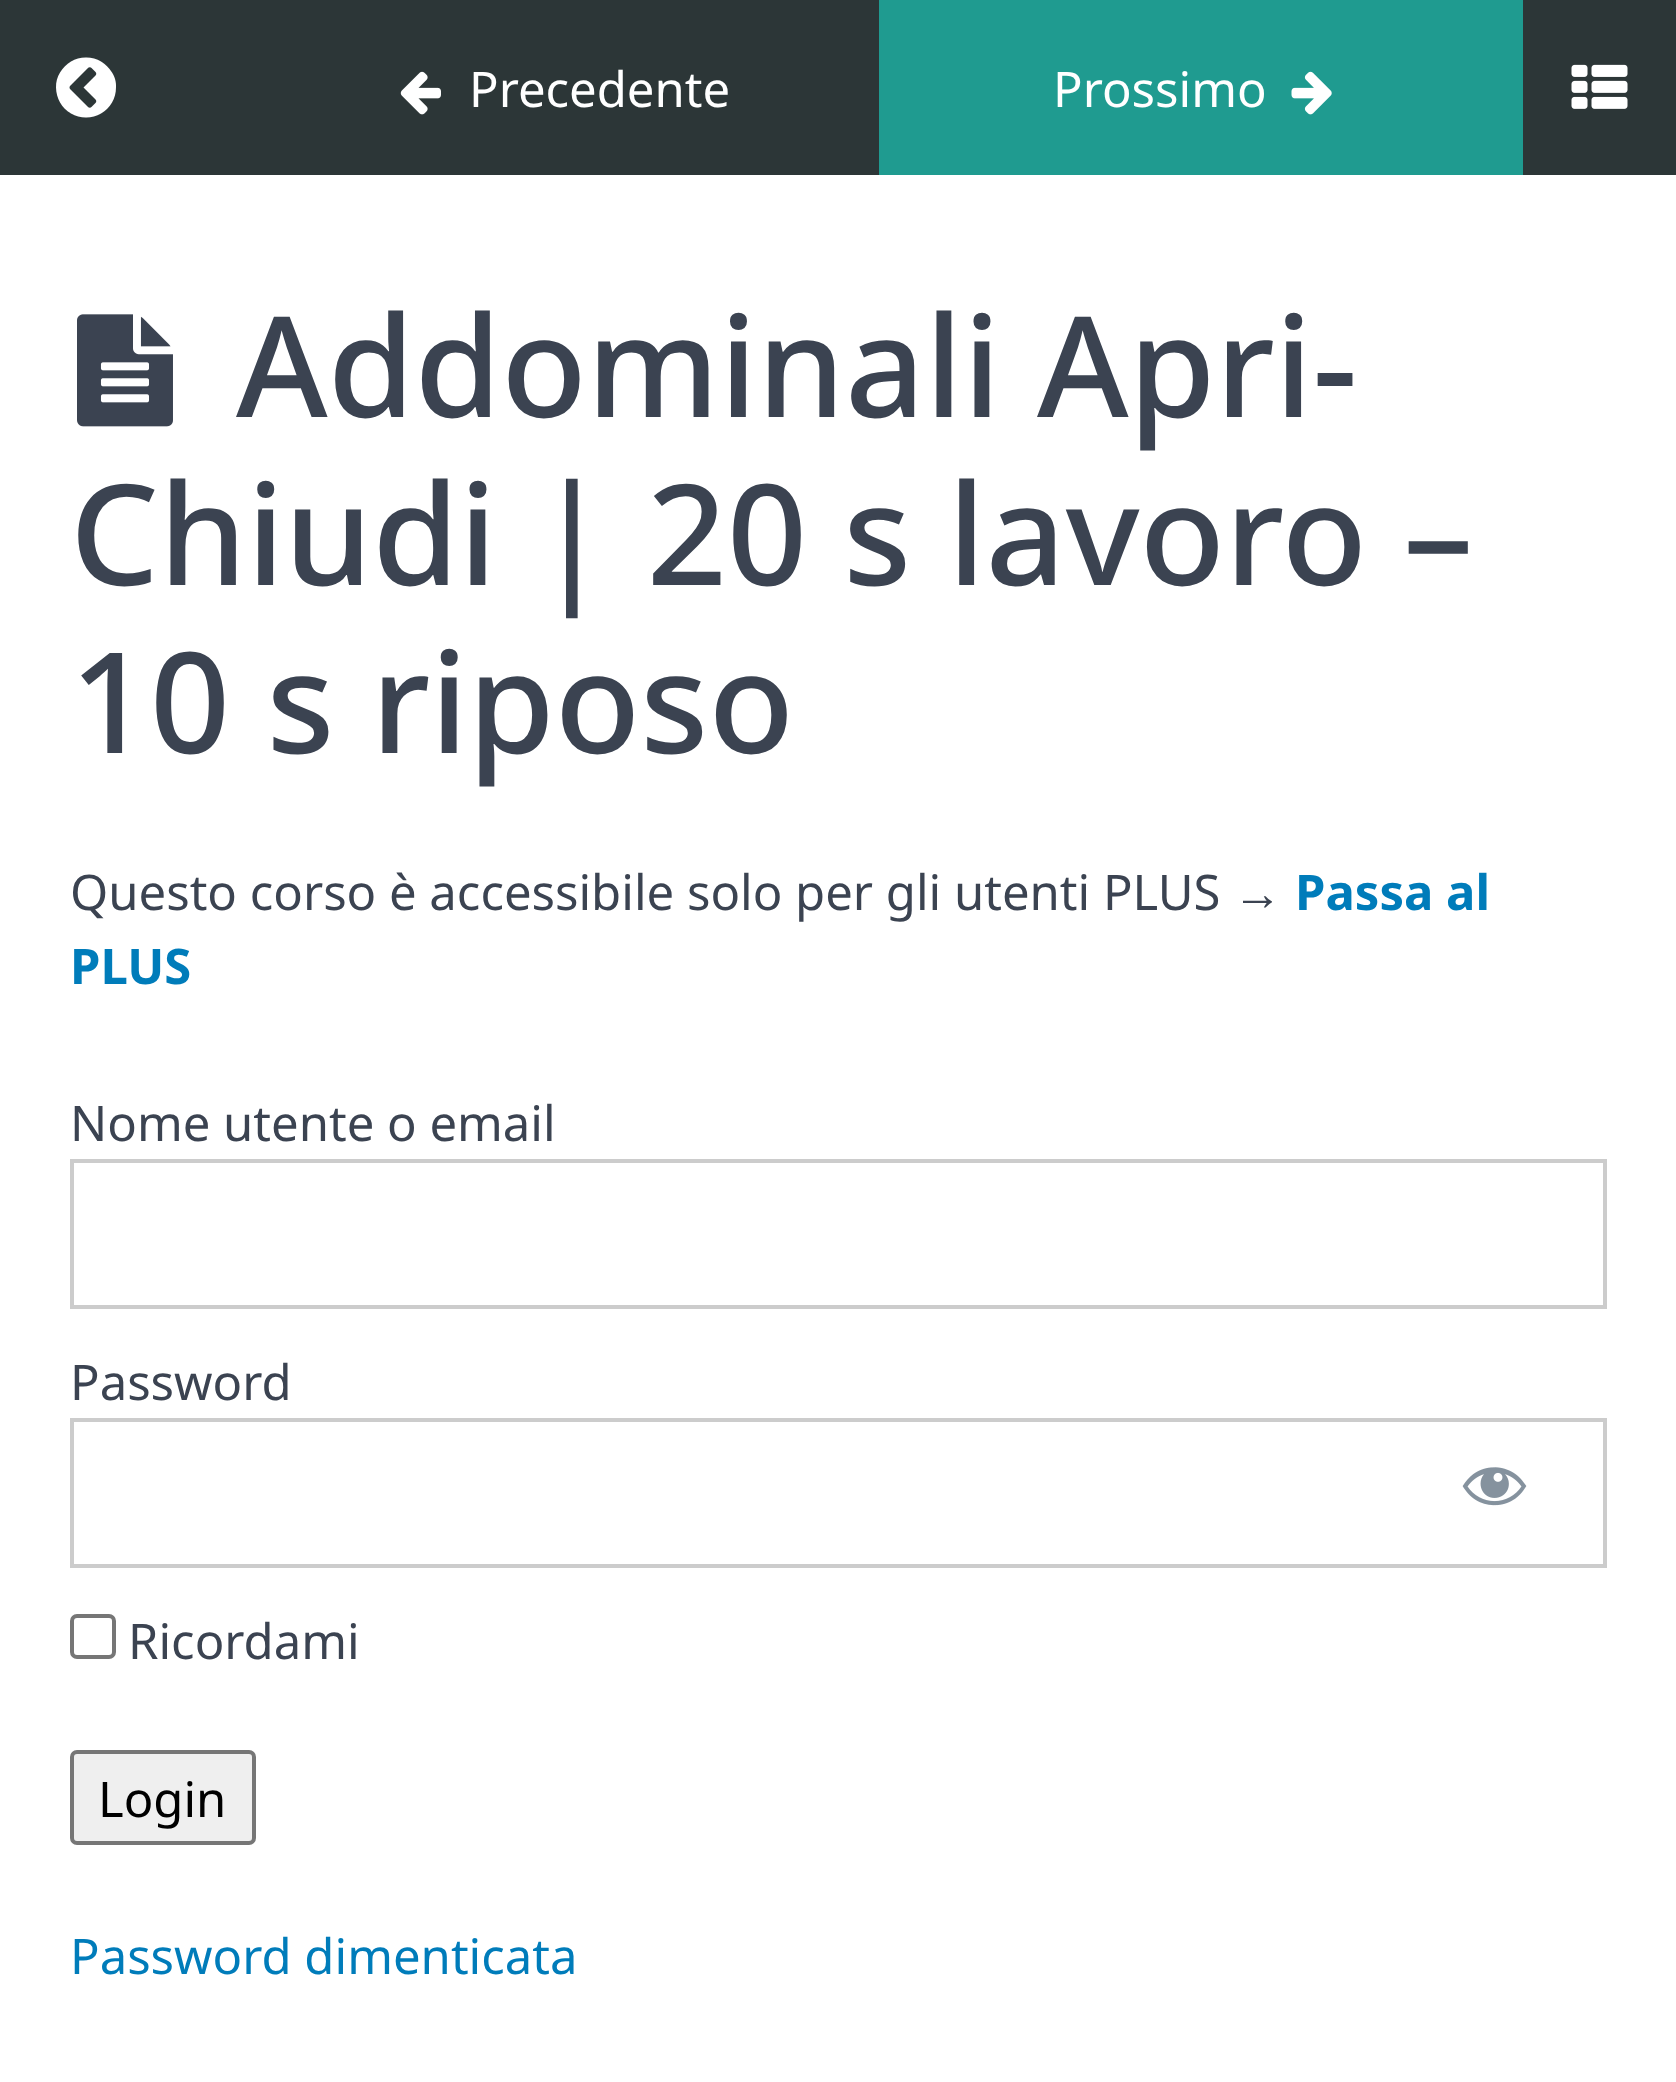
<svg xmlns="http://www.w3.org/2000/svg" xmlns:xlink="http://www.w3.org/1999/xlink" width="1676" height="2082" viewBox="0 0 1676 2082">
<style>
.cls-1{font:49px Noto Sans;fill:#ffffff}
.cls-2{font:500 140px Noto Sans;fill:#3b4351}
.cls-3{font:49px Noto Sans;fill:#3b4351}
.cls-4{font:49px Liberation Sans;fill:#3b4351}
.cls-5{font:bold 49px Noto Sans;fill:#007cba}
.cls-6{font:49px Noto Sans;fill:#000000}
.cls-7{font:49px Noto Sans;fill:#007cba}
</style>
<rect width="100%" height="100%" fill="#ffffff"/>
<rect fill="#2c3637" x="0" y="0" width="1676" height="175"/>
<image xlink:href="image0.png" x="56" y="57" width="60" height="61"/>
<image xlink:href="image1.png" x="400" y="71" width="41" height="44"/>
<rect fill="#1f9b90" x="879" y="0" width="644" height="175"/>
<image xlink:href="image2.png" x="1291" y="71" width="41" height="44"/>
<image xlink:href="image3.png" x="1571" y="64" width="57" height="45"/>
<image xlink:href="image4.png" x="77" y="314" width="96" height="113"/>
<rect fill="none" stroke="#cccccc" stroke-width="4" x="72" y="1161" width="1533" height="146"/>
<rect fill="none" stroke="#cccccc" stroke-width="4" x="72" y="1420" width="1533" height="146"/>
<image xlink:href="image5.png" x="1462" y="1467" width="65" height="39"/>
<rect fill="none" stroke="#767676" stroke-width="4" x="72" y="1616" width="42" height="41" rx="5"/>
<rect fill="#efefef" stroke="#767676" stroke-width="4" x="72" y="1752" width="182" height="91" rx="5"/>
<text class="cls-1" x="469" y="107">Precedente</text>
<text class="cls-1" x="1053" y="107">Prossimo</text>
<text class="cls-2" x="236" y="417">Addominali Apri-</text>
<text class="cls-2"><tspan x="70" y="585">Chiudi | 20 s lavoro –</tspan><tspan x="70" y="753">10 s riposo</tspan></text>
<text class="cls-3" x="70" y="910">Questo corso è accessibile solo per gli utenti PLUS</text>
<text class="cls-4" x="1233" y="910">→</text>
<text class="cls-5" x="1295" y="910">Passa al</text>
<text class="cls-5" x="70" y="984">PLUS</text>
<text class="cls-3" x="70" y="1141">Nome utente o email</text>
<text class="cls-3" x="70" y="1400">Password</text>
<text class="cls-3" x="128" y="1659">Ricordami</text>
<text class="cls-6" x="98" y="1817">Login</text>
<text class="cls-7" x="70" y="1974">Password dimenticata</text>
</svg>
